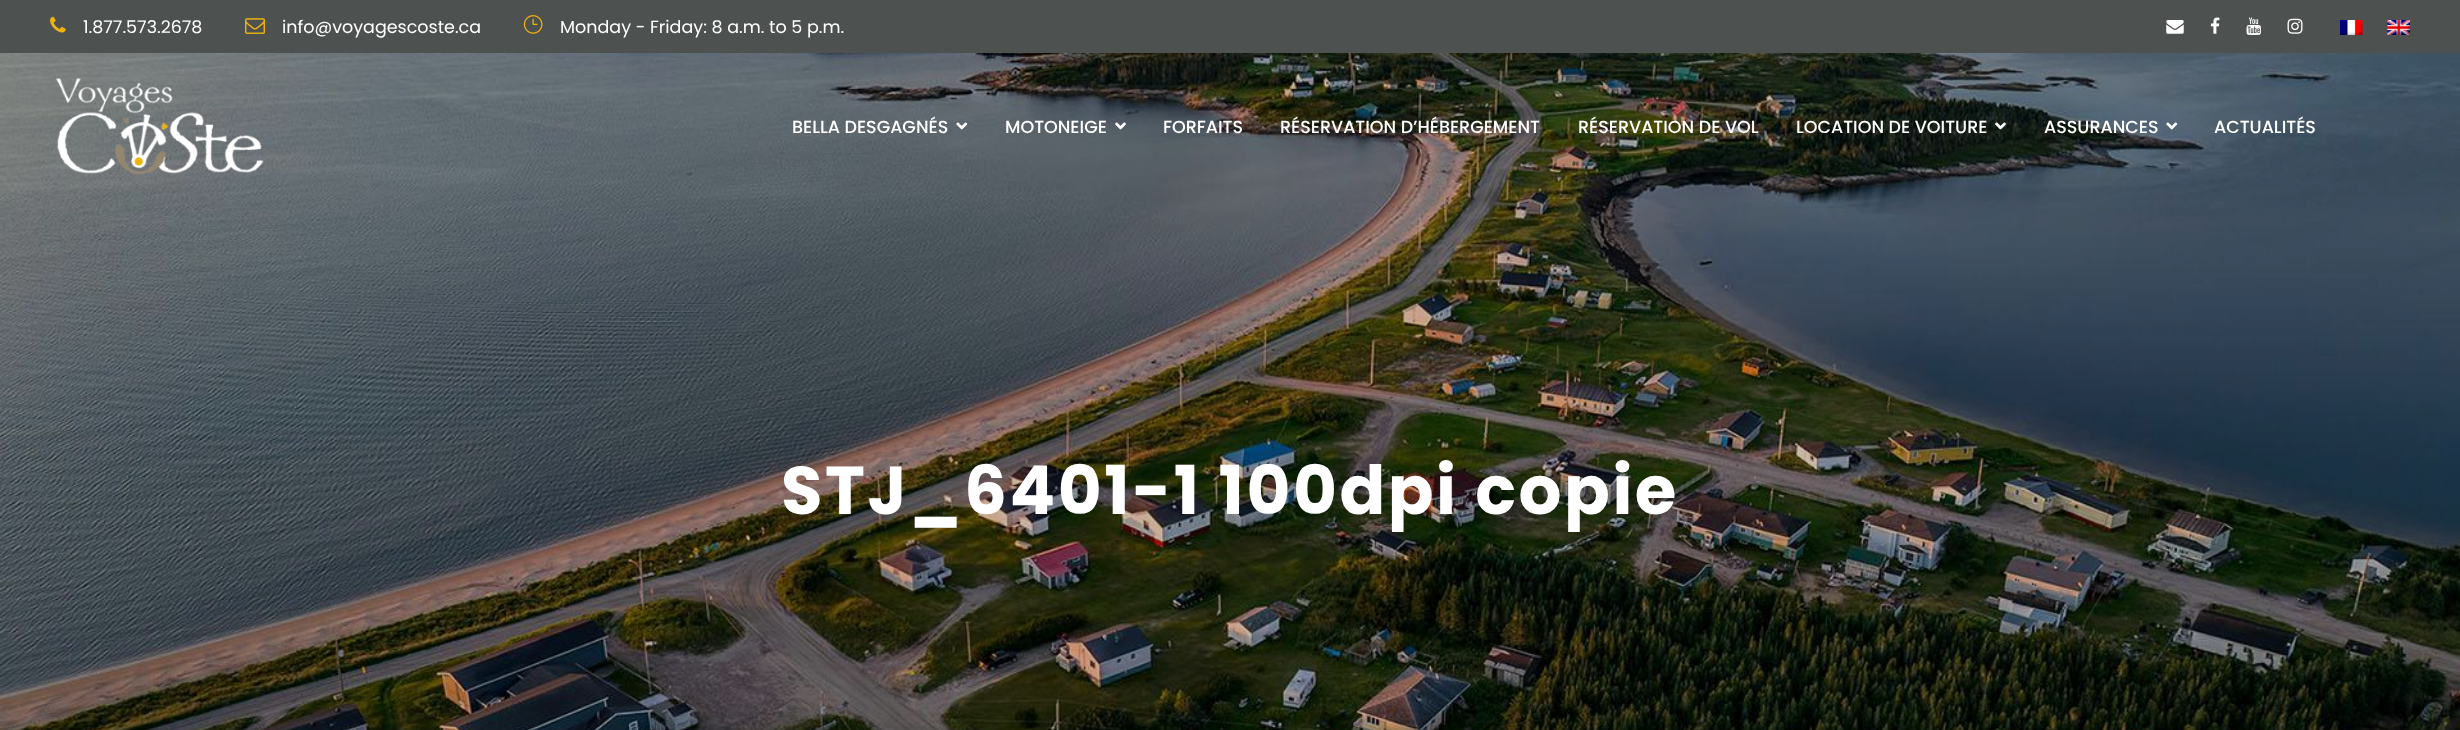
<svg xmlns="http://www.w3.org/2000/svg" xmlns:xlink="http://www.w3.org/1999/xlink" width="2460" height="730" viewBox="0 0 2460 730">
<style>
.cls-1{font:17.5px Poppins;fill:#ffffff}
.cls-2{font:500 17.5px Poppins;fill:#ffffff}
.cls-3{font:bold 67.5px Poppins;letter-spacing:2.5px;fill:#ffffff}
</style>
<rect width="100%" height="100%" fill="#ffffff"/>
<rect fill="#4d514f" x="0" y="0" width="2460" height="53"/>
<image xlink:href="image0.png" x="50" y="16" width="16" height="17"/>
<image xlink:href="image1.png" x="245" y="18" width="20" height="16"/>
<image xlink:href="image2.png" x="523" y="15" width="20" height="19"/>
<image xlink:href="image3.png" x="2166" y="20" width="18" height="14"/>
<image xlink:href="image4.png" x="2210" y="17" width="10" height="17"/>
<image xlink:href="image5.png" x="2246" y="17" width="15" height="18"/>
<image xlink:href="image6.png" x="2287" y="18" width="16" height="16"/>
<image xlink:href="image7.png" x="2340" y="20" width="23" height="15"/>
<image xlink:href="image8.png" x="2387" y="20" width="23" height="15"/>
<image xlink:href="image14.png" x="0" y="53" width="2460" height="677"/>
<image xlink:href="image9.png" x="56" y="78" width="208" height="97"/>
<image xlink:href="image10.png" x="956" y="122" width="12" height="8"/>
<image xlink:href="image11.png" x="1115" y="122" width="11" height="8"/>
<image xlink:href="image12.png" x="1995" y="122" width="11" height="8"/>
<image xlink:href="image13.png" x="2166" y="122" width="12" height="8"/>
<text class="cls-1" x="83" y="33">1.877.573.2678</text>
<text class="cls-1" x="282" y="33">info@voyagescoste.ca</text>
<text class="cls-1" x="560" y="33">Monday - Friday: 8 a.m. to 5 p.m.</text>
<text class="cls-2" x="792" y="133">BELLA DESGAGNÉS</text>
<text class="cls-2" x="1005" y="133">MOTONEIGE</text>
<text class="cls-2" x="1163" y="133">FORFAITS</text>
<text class="cls-2" x="1280" y="133">RÉSERVATION D’HÉBERGEMENT</text>
<text class="cls-2" x="1578" y="133">RÉSERVATION DE VOL</text>
<text class="cls-2" x="1796" y="133">LOCATION DE VOITURE</text>
<text class="cls-2" x="2044" y="133">ASSURANCES</text>
<text class="cls-2" x="2214" y="133">ACTUALITÉS</text>
<text class="cls-3" x="781" y="514">STJ_6401-1 100dpi copie</text>
</svg>
